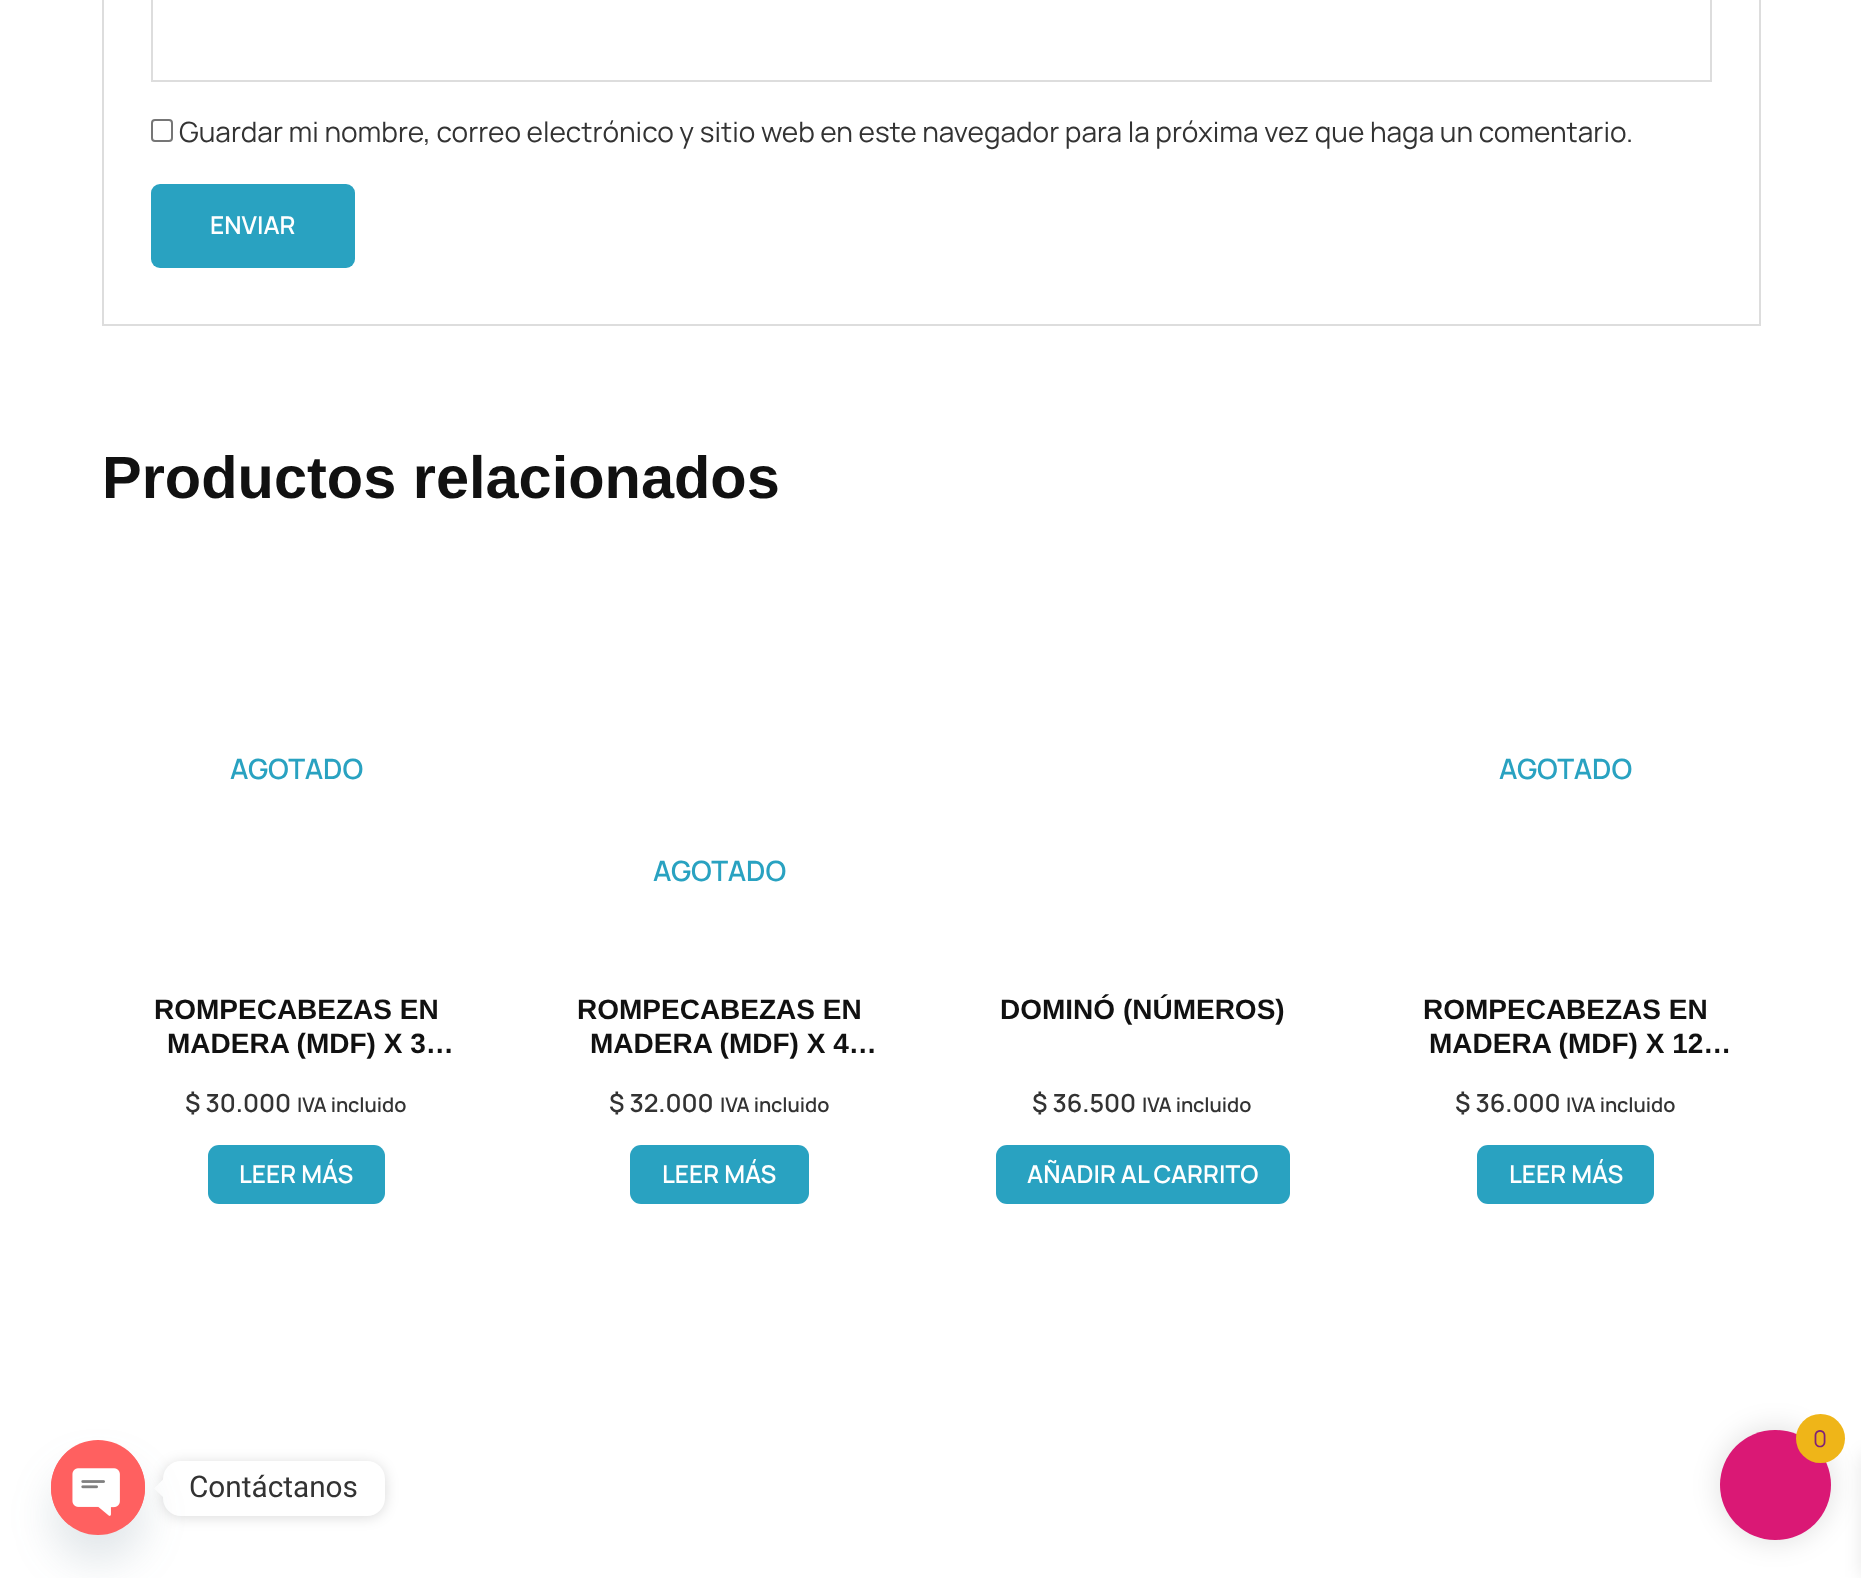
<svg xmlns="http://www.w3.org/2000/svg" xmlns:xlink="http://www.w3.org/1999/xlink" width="1861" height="1578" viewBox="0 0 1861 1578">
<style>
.cls-1{font:28px Manrope;fill:#333333}
.cls-2{font:600 24.5px Manrope;fill:#ffffff}
.cls-3{font:bold 59.5px Liberation Sans;fill:#111111}
.cls-4{font:600 28px Manrope;fill:#29a2c1}
.cls-5{font:bold 28px Liberation Sans;fill:#111111}
.cls-6{font:600 25px Manrope;fill:#333333}
.cls-7{font:600 20px Manrope;fill:#333333}
.cls-8{font:23px Manrope;fill:#802178}
.cls-9{font:29.75px Roboto;fill:#333333}
</style>
<rect width="100%" height="100%" fill="#ffffff"/>
<rect fill="none" stroke="#dddddd" stroke-width="2" x="103" y="-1" width="1657" height="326"/>
<rect fill="none" stroke="#dddddd" stroke-width="2" x="152" y="-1" width="1559" height="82"/>
<rect fill="none" stroke="#767676" stroke-width="2" x="152" y="120" width="20" height="21" rx="3"/>
<rect fill="#29a2c1" x="151" y="184" width="204" height="84" rx="9"/>
<rect fill="#29a2c1" x="208" y="1145" width="177" height="59" rx="11"/>
<rect fill="#29a2c1" x="630" y="1145" width="179" height="59" rx="11"/>
<rect fill="#29a2c1" x="996" y="1145" width="294" height="59" rx="11"/>
<rect fill="#29a2c1" x="1477" y="1145" width="177" height="59" rx="11"/>
<rect fill="#000000" fill-opacity="0.1" filter="blur(13px)" x="1717" y="1426" width="117" height="118" rx="58.5"/>
<rect fill="#da1875" x="1720" y="1430" width="111" height="110" rx="55"/>
<rect fill="#000000" fill-opacity="0.1" filter="blur(9px)" x="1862" y="1454" width="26" height="123"/>
<circle fill="#efb518" cx="1820.5" cy="1438.5" r="24.5"/>
<rect fill="#000000" fill-opacity="0.15" filter="blur(7px)" x="163" y="1463" width="222" height="54" rx="18"/>
<rect fill="#ffffff" x="163" y="1461" width="222" height="55" rx="18"/>
<path fill="#ffffff" d="M163 1479.5V1497L154 1488.5Z"/>
<rect fill="#49687e" fill-opacity="0.16" filter="blur(21px)" x="51" y="1468" width="94" height="95" rx="47"/>
<rect fill="#ff6060" x="51" y="1440" width="94" height="95" rx="47"/>
<image xlink:href="image0.png" x="51" y="1450" width="94" height="75"/>
<text class="cls-1" x="179" y="142">Guardar mi nombre, correo electrónico y sitio web en este navegador para la próxima vez que haga un comentario.</text>
<text class="cls-2" x="210" y="234">ENVIAR</text>
<text class="cls-3" x="102" y="498">Productos relacionados</text>
<text class="cls-4" x="230" y="779">AGOTADO</text>
<text class="cls-5" x="154" y="1019">ROMPECABEZAS EN</text>
<text class="cls-5" x="167" y="1053">MADERA (MDF) X 3…</text>
<text class="cls-6" x="185" y="1112">$ 30.000</text>
<text class="cls-7" x="297" y="1112">IVA incluido</text>
<text class="cls-2" x="239" y="1183">LEER MÁS</text>
<text class="cls-4" x="653" y="881">AGOTADO</text>
<text class="cls-5" x="577" y="1019">ROMPECABEZAS EN</text>
<text class="cls-5" x="590" y="1053">MADERA (MDF) X 4…</text>
<text class="cls-6" x="609" y="1112">$ 32.000</text>
<text class="cls-7" x="720" y="1112">IVA incluido</text>
<text class="cls-2" x="662" y="1183">LEER MÁS</text>
<text class="cls-5" x="1000" y="1019">DOMINÓ (NÚMEROS)</text>
<text class="cls-6" x="1032" y="1112">$ 36.500</text>
<text class="cls-7" x="1142" y="1112">IVA incluido</text>
<text class="cls-2" x="1027" y="1183">AÑADIR AL CARRITO</text>
<text class="cls-4" x="1499" y="779">AGOTADO</text>
<text class="cls-5" x="1423" y="1019">ROMPECABEZAS EN</text>
<text class="cls-5" x="1429" y="1053">MADERA (MDF) X 12…</text>
<text class="cls-6" x="1455" y="1112">$ 36.000</text>
<text class="cls-7" x="1566" y="1112">IVA incluido</text>
<text class="cls-2" x="1509" y="1183">LEER MÁS</text>
<text class="cls-8" x="1813" y="1447">0</text>
<text class="cls-9" x="189" y="1497">Contáctanos</text>
</svg>
